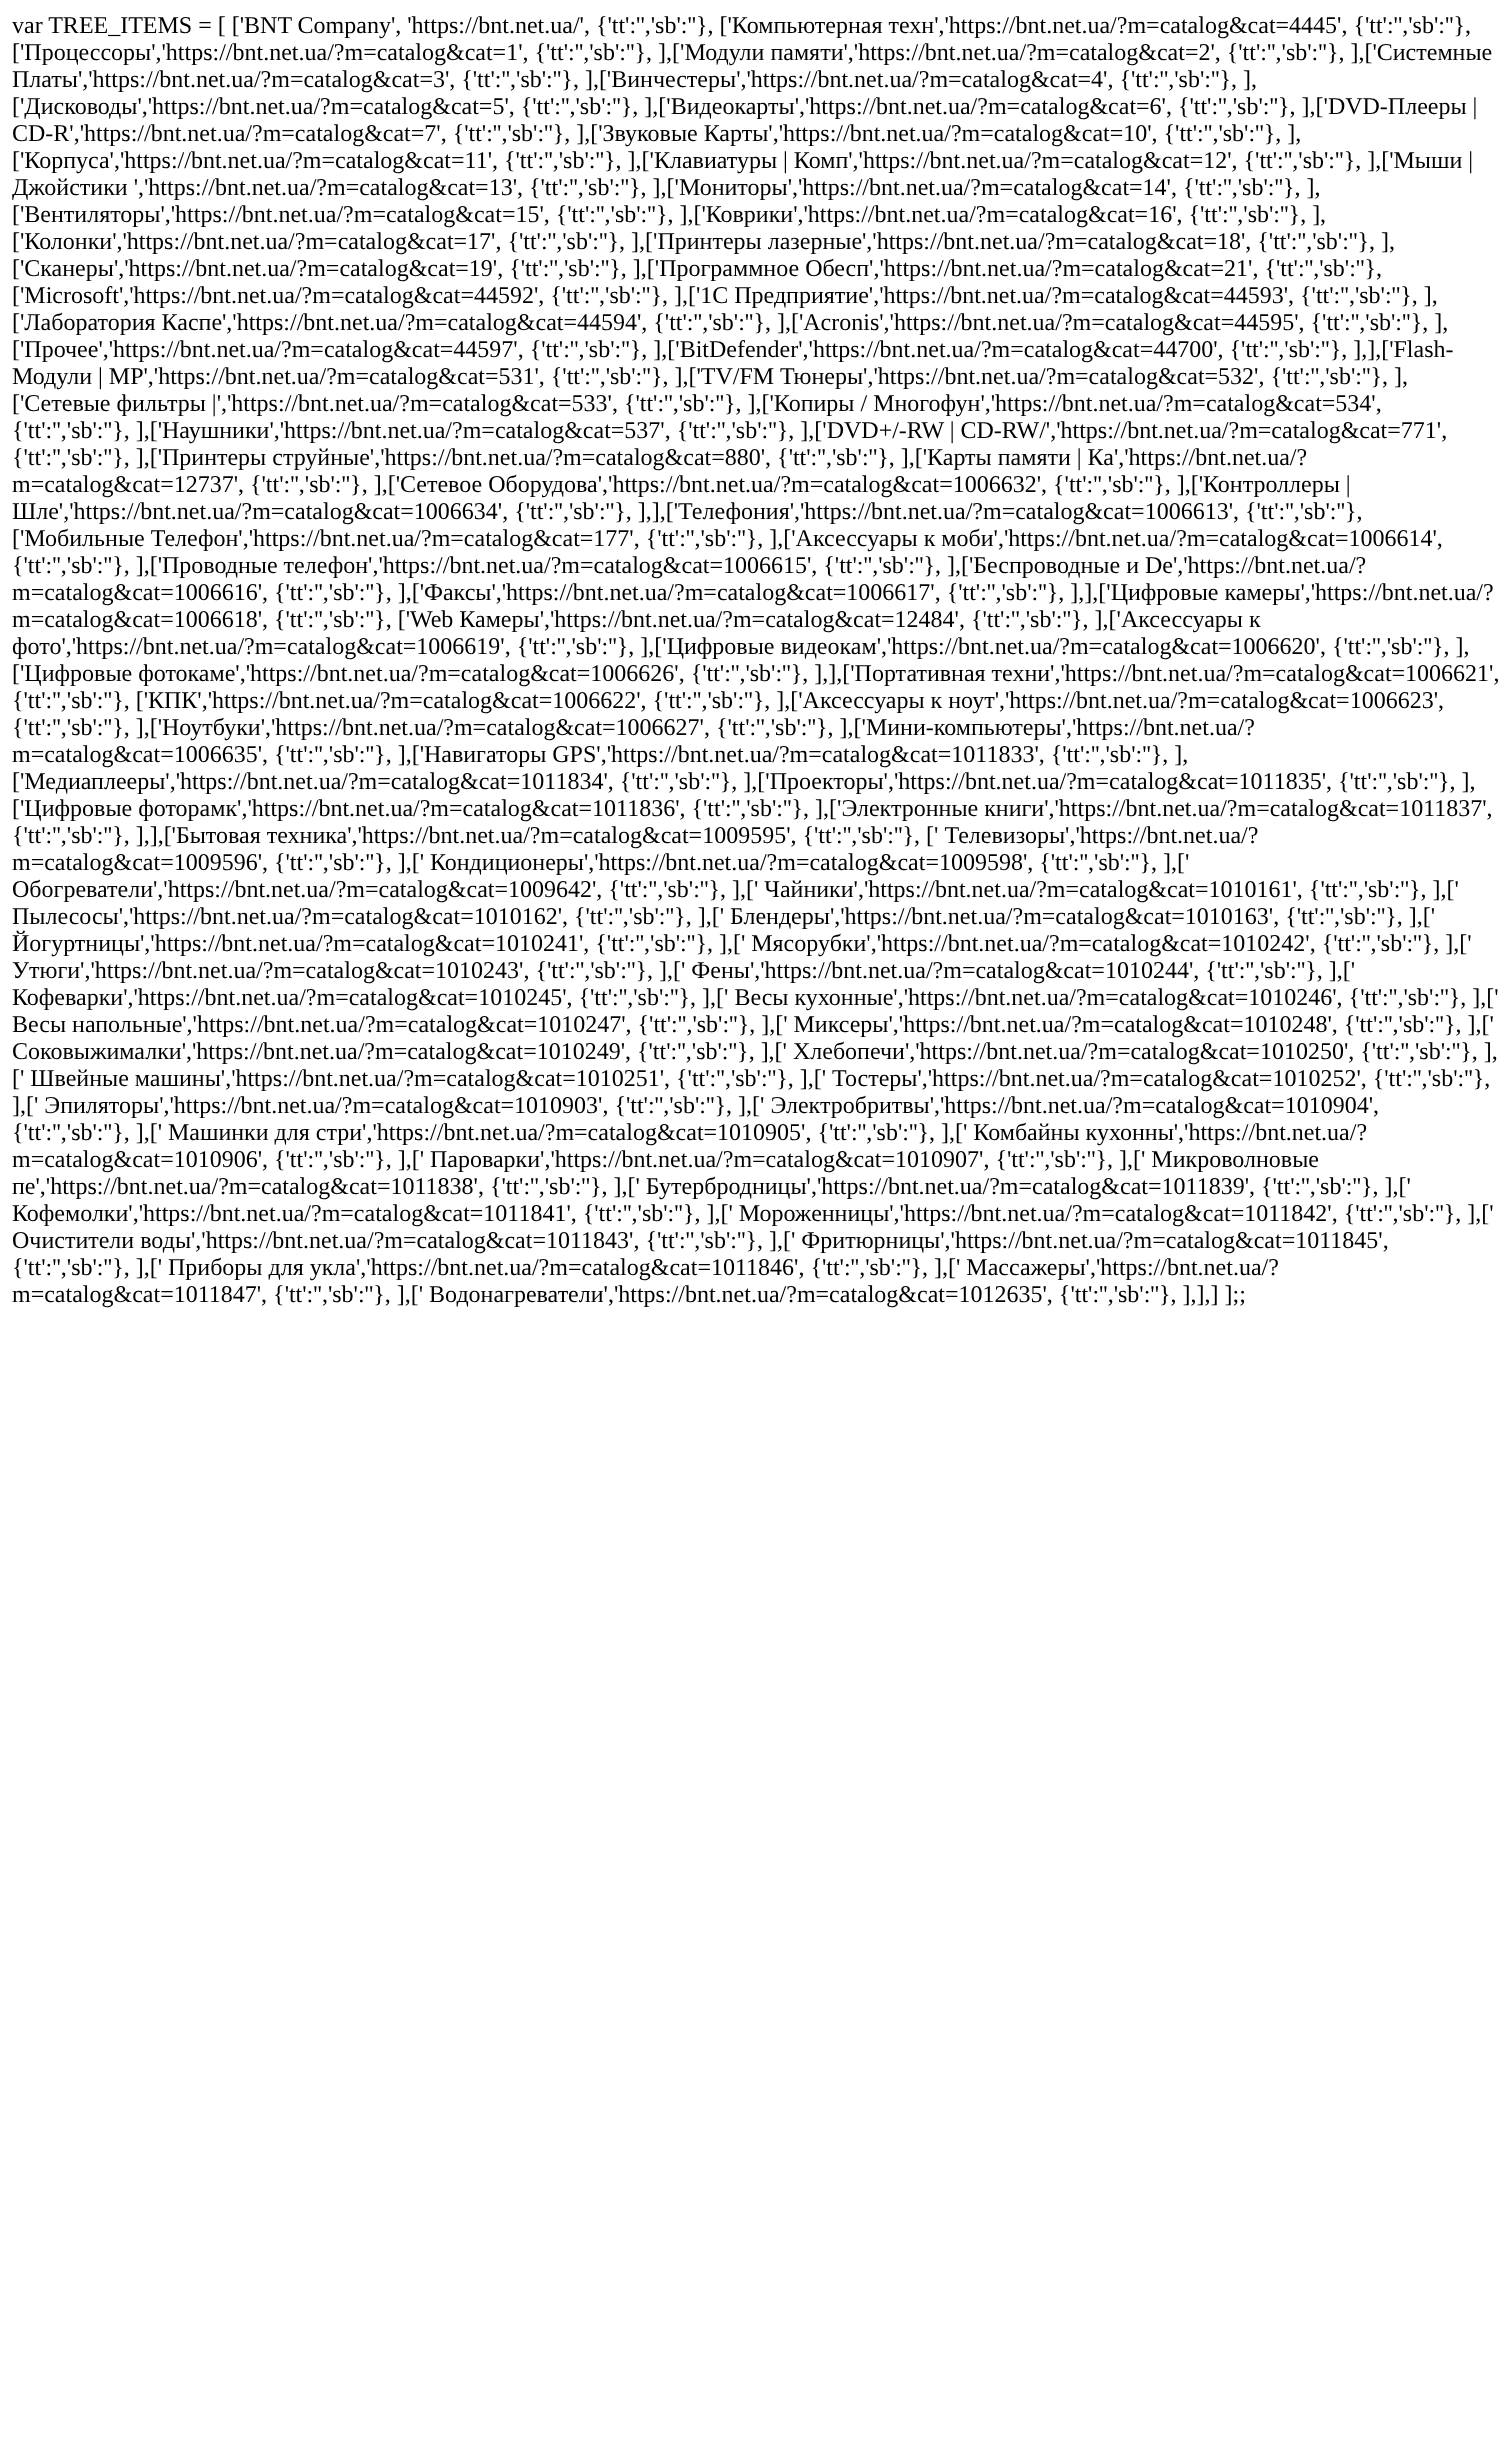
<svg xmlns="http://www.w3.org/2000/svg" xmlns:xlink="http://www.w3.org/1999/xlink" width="1512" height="2447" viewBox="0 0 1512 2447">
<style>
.cls-1{font:24px Liberation Serif;fill:#000000}
</style>
<rect width="100%" height="100%" fill="#ffffff"/>
<text class="cls-1"><tspan x="12" y="33">var TREE_ITEMS = [ ['BNT Company', 'https://bnt.net.ua/', {'tt':'','sb':''}, ['Компьютерная техн','https://bnt.net.ua/?m=catalog&amp;cat=4445', {'tt':'','sb':''},</tspan><tspan x="12" y="60">['Процессоры','https://bnt.net.ua/?m=catalog&amp;cat=1', {'tt':'','sb':''}, ],['Модули памяти','https://bnt.net.ua/?m=catalog&amp;cat=2', {'tt':'','sb':''}, ],['Системные</tspan><tspan x="12" y="87">Платы','https://bnt.net.ua/?m=catalog&amp;cat=3', {'tt':'','sb':''}, ],['Винчестеры','https://bnt.net.ua/?m=catalog&amp;cat=4', {'tt':'','sb':''}, ],</tspan><tspan x="12" y="114">['Дисководы','https://bnt.net.ua/?m=catalog&amp;cat=5', {'tt':'','sb':''}, ],['Видеокарты','https://bnt.net.ua/?m=catalog&amp;cat=6', {'tt':'','sb':''}, ],['DVD-Плееры |</tspan><tspan x="12" y="141">CD-R','https://bnt.net.ua/?m=catalog&amp;cat=7', {'tt':'','sb':''}, ],['Звуковые Карты','https://bnt.net.ua/?m=catalog&amp;cat=10', {'tt':'','sb':''}, ],</tspan><tspan x="12" y="168">['Корпуса','https://bnt.net.ua/?m=catalog&amp;cat=11', {'tt':'','sb':''}, ],['Клавиатуры | Комп','https://bnt.net.ua/?m=catalog&amp;cat=12', {'tt':'','sb':''}, ],['Мыши |</tspan><tspan x="12" y="195">Джойстики ','https://bnt.net.ua/?m=catalog&amp;cat=13', {'tt':'','sb':''}, ],['Мониторы','https://bnt.net.ua/?m=catalog&amp;cat=14', {'tt':'','sb':''}, ],</tspan><tspan x="12" y="222">['Вентиляторы','https://bnt.net.ua/?m=catalog&amp;cat=15', {'tt':'','sb':''}, ],['Коврики','https://bnt.net.ua/?m=catalog&amp;cat=16', {'tt':'','sb':''}, ],</tspan><tspan x="12" y="249">['Колонки','https://bnt.net.ua/?m=catalog&amp;cat=17', {'tt':'','sb':''}, ],['Принтеры лазерные','https://bnt.net.ua/?m=catalog&amp;cat=18', {'tt':'','sb':''}, ],</tspan><tspan x="12" y="276">['Сканеры','https://bnt.net.ua/?m=catalog&amp;cat=19', {'tt':'','sb':''}, ],['Программное Обесп','https://bnt.net.ua/?m=catalog&amp;cat=21', {'tt':'','sb':''},</tspan><tspan x="12" y="303">['Microsoft','https://bnt.net.ua/?m=catalog&amp;cat=44592', {'tt':'','sb':''}, ],['1C Предприятие','https://bnt.net.ua/?m=catalog&amp;cat=44593', {'tt':'','sb':''}, ],</tspan><tspan x="12" y="330">['Лаборатория Каспе','https://bnt.net.ua/?m=catalog&amp;cat=44594', {'tt':'','sb':''}, ],['Acronis','https://bnt.net.ua/?m=catalog&amp;cat=44595', {'tt':'','sb':''}, ],</tspan><tspan x="12" y="357">['Прочее','https://bnt.net.ua/?m=catalog&amp;cat=44597', {'tt':'','sb':''}, ],['BitDefender','https://bnt.net.ua/?m=catalog&amp;cat=44700', {'tt':'','sb':''}, ],],['Flash-</tspan><tspan x="12" y="384">Модули | MP','https://bnt.net.ua/?m=catalog&amp;cat=531', {'tt':'','sb':''}, ],['TV/FM Тюнеры','https://bnt.net.ua/?m=catalog&amp;cat=532', {'tt':'','sb':''}, ],</tspan><tspan x="12" y="411">['Сетевые фильтры |','https://bnt.net.ua/?m=catalog&amp;cat=533', {'tt':'','sb':''}, ],['Копиры / Многофун','https://bnt.net.ua/?m=catalog&amp;cat=534',</tspan><tspan x="12" y="438">{'tt':'','sb':''}, ],['Наушники','https://bnt.net.ua/?m=catalog&amp;cat=537', {'tt':'','sb':''}, ],['DVD+/-RW | CD-RW/','https://bnt.net.ua/?m=catalog&amp;cat=771',</tspan><tspan x="12" y="465">{'tt':'','sb':''}, ],['Принтеры струйные','https://bnt.net.ua/?m=catalog&amp;cat=880', {'tt':'','sb':''}, ],['Карты памяти | Ка','https://bnt.net.ua/?</tspan><tspan x="12" y="492">m=catalog&amp;cat=12737', {'tt':'','sb':''}, ],['Сетевое Оборудова','https://bnt.net.ua/?m=catalog&amp;cat=1006632', {'tt':'','sb':''}, ],['Контроллеры |</tspan><tspan x="12" y="519">Шле','https://bnt.net.ua/?m=catalog&amp;cat=1006634', {'tt':'','sb':''}, ],],['Телефония','https://bnt.net.ua/?m=catalog&amp;cat=1006613', {'tt':'','sb':''},</tspan><tspan x="12" y="546">['Мобильные Телефон','https://bnt.net.ua/?m=catalog&amp;cat=177', {'tt':'','sb':''}, ],['Аксессуары к моби','https://bnt.net.ua/?m=catalog&amp;cat=1006614',</tspan><tspan x="12" y="573">{'tt':'','sb':''}, ],['Проводные телефон','https://bnt.net.ua/?m=catalog&amp;cat=1006615', {'tt':'','sb':''}, ],['Беспроводные и De','https://bnt.net.ua/?</tspan><tspan x="12" y="600">m=catalog&amp;cat=1006616', {'tt':'','sb':''}, ],['Факсы','https://bnt.net.ua/?m=catalog&amp;cat=1006617', {'tt':'','sb':''}, ],],['Цифровые камеры','https://bnt.net.ua/?</tspan><tspan x="12" y="627">m=catalog&amp;cat=1006618', {'tt':'','sb':''}, ['Web Камеры','https://bnt.net.ua/?m=catalog&amp;cat=12484', {'tt':'','sb':''}, ],['Аксессуары к</tspan><tspan x="12" y="654">фото','https://bnt.net.ua/?m=catalog&amp;cat=1006619', {'tt':'','sb':''}, ],['Цифровые видеокам','https://bnt.net.ua/?m=catalog&amp;cat=1006620', {'tt':'','sb':''}, ],</tspan><tspan x="12" y="681">['Цифровые фотокаме','https://bnt.net.ua/?m=catalog&amp;cat=1006626', {'tt':'','sb':''}, ],],['Портативная техни','https://bnt.net.ua/?m=catalog&amp;cat=1006621',</tspan><tspan x="12" y="708">{'tt':'','sb':''}, ['КПК','https://bnt.net.ua/?m=catalog&amp;cat=1006622', {'tt':'','sb':''}, ],['Аксессуары к ноут','https://bnt.net.ua/?m=catalog&amp;cat=1006623',</tspan><tspan x="12" y="735">{'tt':'','sb':''}, ],['Ноутбуки','https://bnt.net.ua/?m=catalog&amp;cat=1006627', {'tt':'','sb':''}, ],['Мини-компьютеры','https://bnt.net.ua/?</tspan><tspan x="12" y="762">m=catalog&amp;cat=1006635', {'tt':'','sb':''}, ],['Навигаторы GPS','https://bnt.net.ua/?m=catalog&amp;cat=1011833', {'tt':'','sb':''}, ],</tspan><tspan x="12" y="789">['Медиаплееры','https://bnt.net.ua/?m=catalog&amp;cat=1011834', {'tt':'','sb':''}, ],['Проекторы','https://bnt.net.ua/?m=catalog&amp;cat=1011835', {'tt':'','sb':''}, ],</tspan><tspan x="12" y="816">['Цифровые фоторамк','https://bnt.net.ua/?m=catalog&amp;cat=1011836', {'tt':'','sb':''}, ],['Электронные книги','https://bnt.net.ua/?m=catalog&amp;cat=1011837',</tspan><tspan x="12" y="843">{'tt':'','sb':''}, ],],['Бытовая техника','https://bnt.net.ua/?m=catalog&amp;cat=1009595', {'tt':'','sb':''}, [' Телевизоры','https://bnt.net.ua/?</tspan><tspan x="12" y="870">m=catalog&amp;cat=1009596', {'tt':'','sb':''}, ],[' Кондиционеры','https://bnt.net.ua/?m=catalog&amp;cat=1009598', {'tt':'','sb':''}, ],['</tspan><tspan x="12" y="897">Обогреватели','https://bnt.net.ua/?m=catalog&amp;cat=1009642', {'tt':'','sb':''}, ],[' Чайники','https://bnt.net.ua/?m=catalog&amp;cat=1010161', {'tt':'','sb':''}, ],['</tspan><tspan x="12" y="924">Пылесосы','https://bnt.net.ua/?m=catalog&amp;cat=1010162', {'tt':'','sb':''}, ],[' Блендеры','https://bnt.net.ua/?m=catalog&amp;cat=1010163', {'tt':'','sb':''}, ],['</tspan><tspan x="12" y="951">Йогуртницы','https://bnt.net.ua/?m=catalog&amp;cat=1010241', {'tt':'','sb':''}, ],[' Мясорубки','https://bnt.net.ua/?m=catalog&amp;cat=1010242', {'tt':'','sb':''}, ],['</tspan><tspan x="12" y="978">Утюги','https://bnt.net.ua/?m=catalog&amp;cat=1010243', {'tt':'','sb':''}, ],[' Фены','https://bnt.net.ua/?m=catalog&amp;cat=1010244', {'tt':'','sb':''}, ],['</tspan><tspan x="12" y="1005">Кофеварки','https://bnt.net.ua/?m=catalog&amp;cat=1010245', {'tt':'','sb':''}, ],[' Весы кухонные','https://bnt.net.ua/?m=catalog&amp;cat=1010246', {'tt':'','sb':''}, ],['</tspan><tspan x="12" y="1032">Весы напольные','https://bnt.net.ua/?m=catalog&amp;cat=1010247', {'tt':'','sb':''}, ],[' Миксеры','https://bnt.net.ua/?m=catalog&amp;cat=1010248', {'tt':'','sb':''}, ],['</tspan><tspan x="12" y="1059">Соковыжималки','https://bnt.net.ua/?m=catalog&amp;cat=1010249', {'tt':'','sb':''}, ],[' Хлебопечи','https://bnt.net.ua/?m=catalog&amp;cat=1010250', {'tt':'','sb':''}, ],</tspan><tspan x="12" y="1086">[' Швейные машины','https://bnt.net.ua/?m=catalog&amp;cat=1010251', {'tt':'','sb':''}, ],[' Тостеры','https://bnt.net.ua/?m=catalog&amp;cat=1010252', {'tt':'','sb':''},</tspan><tspan x="12" y="1113">],[' Эпиляторы','https://bnt.net.ua/?m=catalog&amp;cat=1010903', {'tt':'','sb':''}, ],[' Электробритвы','https://bnt.net.ua/?m=catalog&amp;cat=1010904',</tspan><tspan x="12" y="1140">{'tt':'','sb':''}, ],[' Машинки для стри','https://bnt.net.ua/?m=catalog&amp;cat=1010905', {'tt':'','sb':''}, ],[' Комбайны кухонны','https://bnt.net.ua/?</tspan><tspan x="12" y="1167">m=catalog&amp;cat=1010906', {'tt':'','sb':''}, ],[' Пароварки','https://bnt.net.ua/?m=catalog&amp;cat=1010907', {'tt':'','sb':''}, ],[' Микроволновые</tspan><tspan x="12" y="1194">пе','https://bnt.net.ua/?m=catalog&amp;cat=1011838', {'tt':'','sb':''}, ],[' Бутербродницы','https://bnt.net.ua/?m=catalog&amp;cat=1011839', {'tt':'','sb':''}, ],['</tspan><tspan x="12" y="1221">Кофемолки','https://bnt.net.ua/?m=catalog&amp;cat=1011841', {'tt':'','sb':''}, ],[' Мороженницы','https://bnt.net.ua/?m=catalog&amp;cat=1011842', {'tt':'','sb':''}, ],['</tspan><tspan x="12" y="1248">Очистители воды','https://bnt.net.ua/?m=catalog&amp;cat=1011843', {'tt':'','sb':''}, ],[' Фритюрницы','https://bnt.net.ua/?m=catalog&amp;cat=1011845',</tspan><tspan x="12" y="1275">{'tt':'','sb':''}, ],[' Приборы для укла','https://bnt.net.ua/?m=catalog&amp;cat=1011846', {'tt':'','sb':''}, ],[' Массажеры','https://bnt.net.ua/?</tspan><tspan x="12" y="1302">m=catalog&amp;cat=1011847', {'tt':'','sb':''}, ],[' Водонагреватели','https://bnt.net.ua/?m=catalog&amp;cat=1012635', {'tt':'','sb':''}, ],],] ];;</tspan></text>
</svg>
